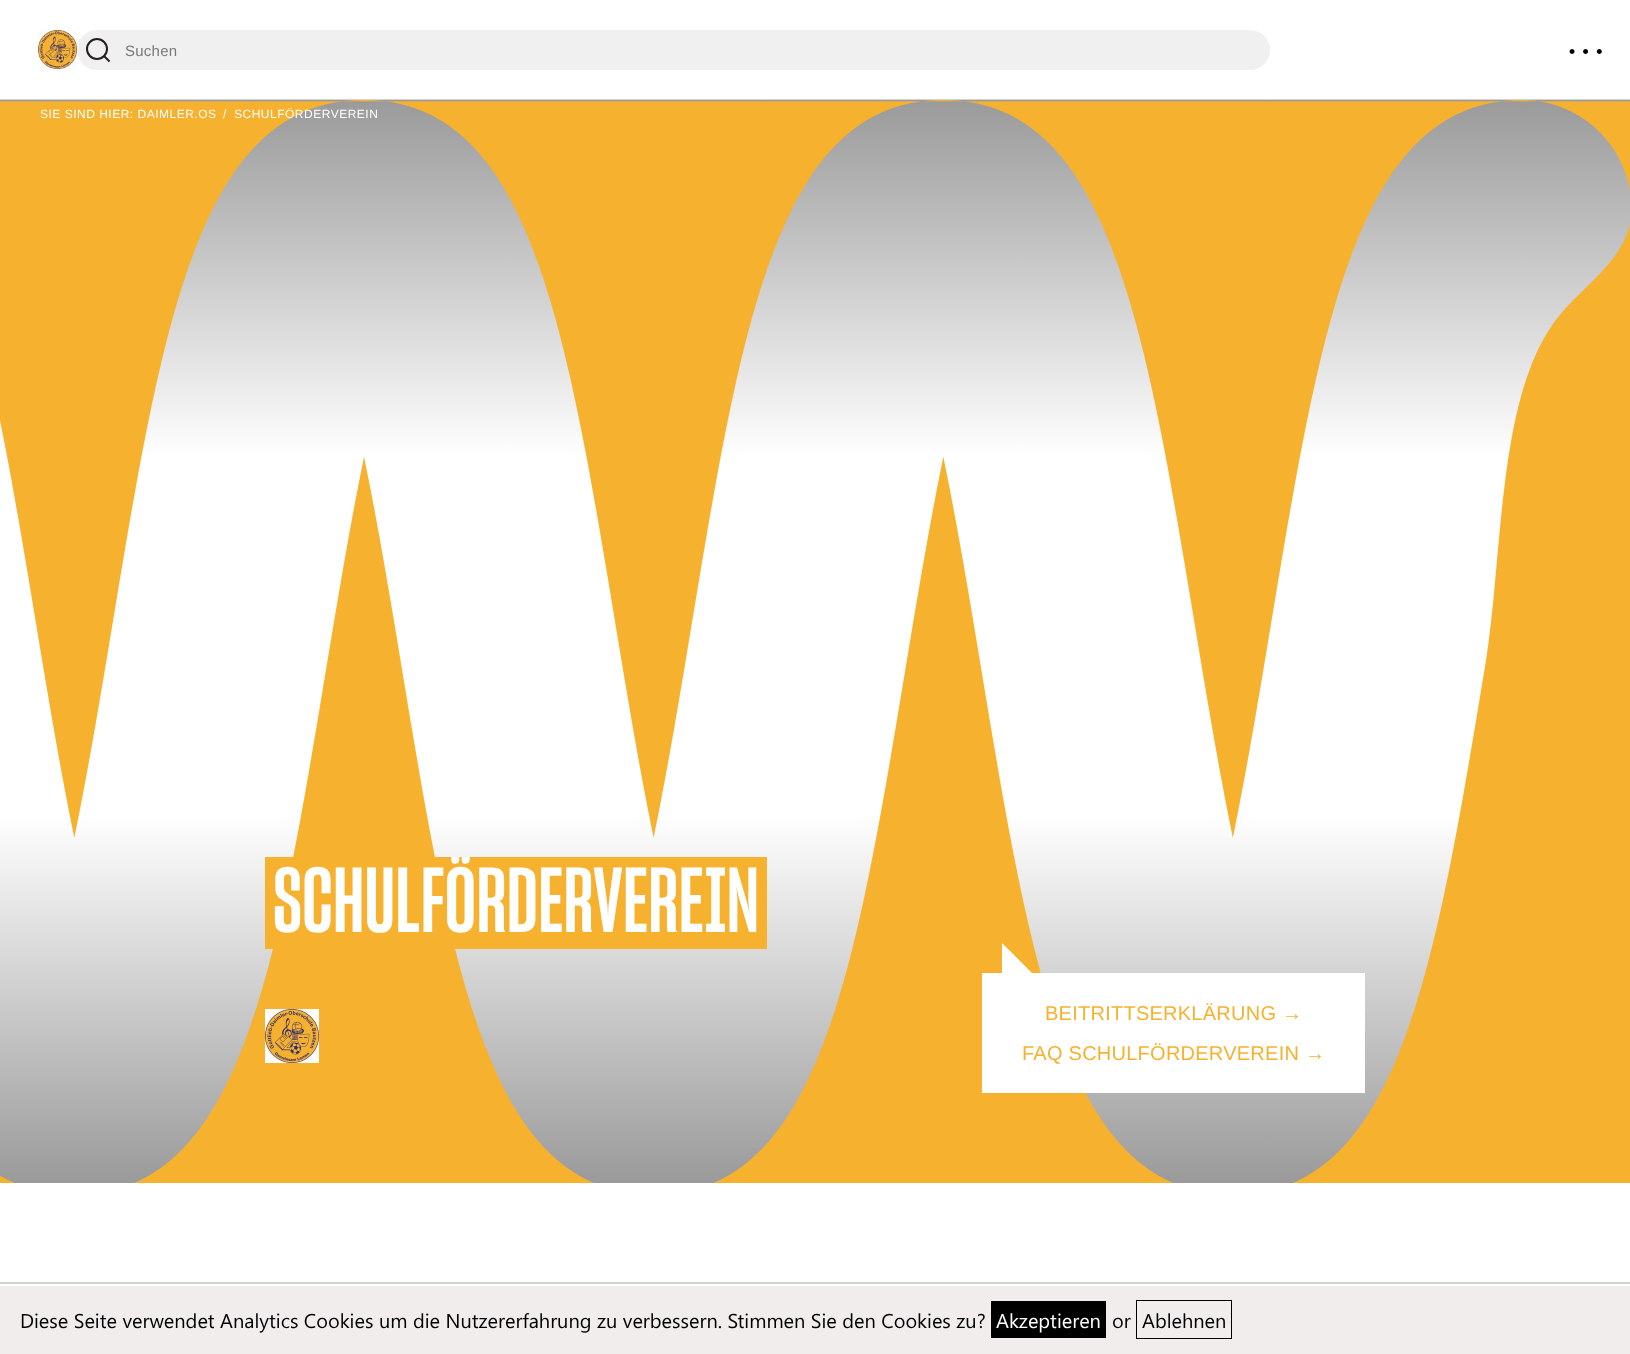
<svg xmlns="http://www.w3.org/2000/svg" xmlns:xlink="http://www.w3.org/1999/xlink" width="1630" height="1354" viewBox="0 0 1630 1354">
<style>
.cls-1{font:15px Liberation Sans;letter-spacing:0.25px;fill:#787878}
.cls-2{font:20px Segoe UI;fill:#000000}
.cls-3{font:12px Liberation Sans;letter-spacing:0.5px;fill:#ffffff}
.cls-4{font:bold 90px 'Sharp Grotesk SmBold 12';fill:#ffffff}
.cls-5{font:20px Liberation Sans;letter-spacing:0.25px;fill:#f6b12f}
.cls-6{font:20px Segoe UI;fill:#ffffff}
</style>
<defs>
<linearGradient id="g1" gradientUnits="userSpaceOnUse" x1="815" y1="100" x2="815" y2="1183"><stop offset="0" stop-color="#9a9a9a"/><stop offset="0.33" stop-color="#ffffff"/><stop offset="0.66" stop-color="#ffffff"/><stop offset="1" stop-color="#9a9a9a"/></linearGradient>
<clipPath id="clip1"><rect x="265" y="857" width="875" height="92"/></clipPath>
</defs>
<rect width="100%" height="100%" fill="#ffffff"/>
<rect fill="#d2d2d2" x="0" y="99" width="1630" height="1"/>
<image xlink:href="image0.png" x="38" y="30" width="39" height="39"/>
<rect fill="#f0f0f0" x="77" y="30" width="1193" height="40" rx="20"/>
<circle fill="none" stroke="#231f20" stroke-width="2" cx="97" cy="49" r="10"/>
<path fill="none" stroke="#231f20" stroke-width="2" d="M104 56L109.5 61.5"/>
<rect fill="url(#g1)" x="0" y="100" width="1630" height="1083"/>
<image xlink:href="image1.png" x="0" y="100" width="1630" height="1083"/>
<rect fill="#f6b12f" x="265" y="857" width="502" height="92"/>
<image xlink:href="image2.png" x="265" y="1009" width="54" height="54"/>
<rect fill="#ffffff" x="982" y="973" width="383" height="120"/>
<path fill="#ffffff" d="M1002 973V943L1032 973Z"/>
<rect fill="#d2d2d2" x="0" y="1282" width="1630" height="2"/>
<rect fill="#f1eded" x="0" y="1286" width="1630" height="68"/>
<rect fill="#000000" x="991" y="1301" width="115" height="37"/>
<rect fill="none" stroke="#000000" x="1136.5" y="1300.5" width="95" height="38"/>
<text class="cls-1" x="125" y="56">Suchen</text>
<text class="cls-2" x="1568" y="58">• • •</text>
<text class="cls-3" x="40" y="118">SIE SIND HIER: DAIMLER.OS</text>
<text class="cls-3" x="223" y="118">/</text>
<text class="cls-3" x="234" y="118">SCHULFÖRDERVEREIN</text>
<g clip-path="url(#clip1)">
<text class="cls-4" x="273" y="932">SCHULFÖRDERVEREIN</text>
</g>
<text class="cls-5" x="1045" y="1020">BEITRITTSERKLÄRUNG →</text>
<text class="cls-5" x="1022" y="1060">FAQ SCHULFÖRDERVEREIN →</text>
<text class="cls-2" x="20" y="1328">Diese Seite verwendet Analytics Cookies um die Nutzererfahrung zu verbessern. Stimmen Sie den Cookies zu?</text>
<text class="cls-6" x="996" y="1328">Akzeptieren</text>
<text class="cls-2" x="1112" y="1328">or</text>
<text class="cls-2" x="1142" y="1328">Ablehnen</text>
</svg>
